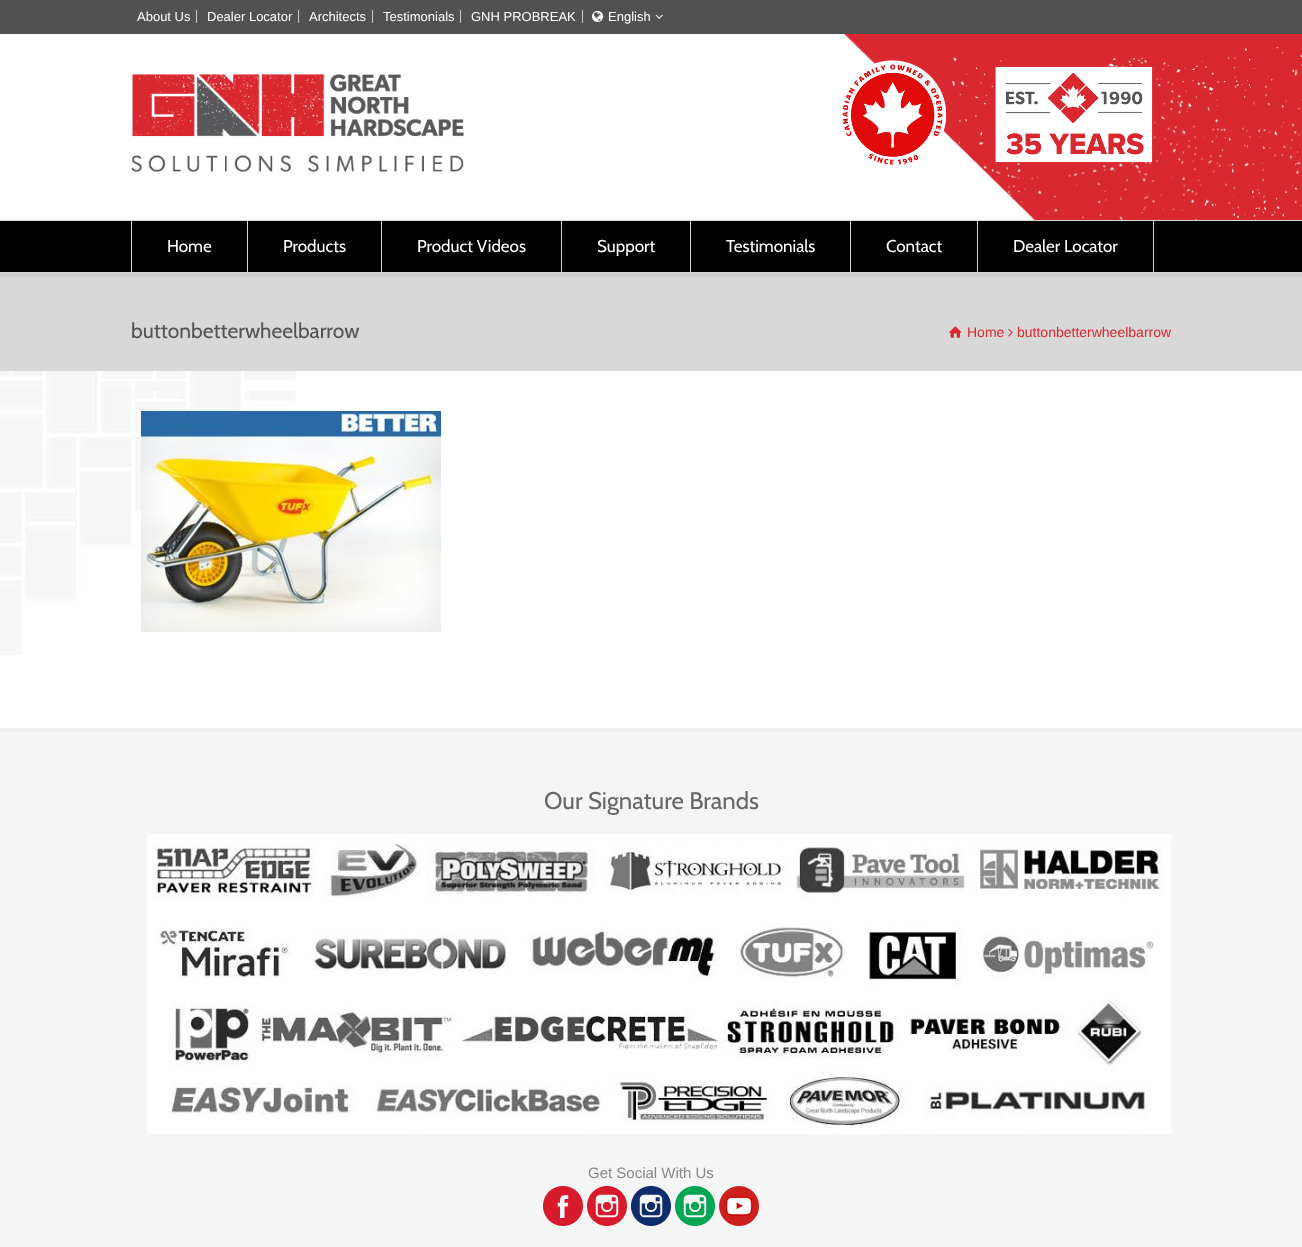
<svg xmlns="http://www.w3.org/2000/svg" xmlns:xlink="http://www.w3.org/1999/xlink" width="1302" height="1247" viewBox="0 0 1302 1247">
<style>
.cls-1{font:13px Liberation Sans;fill:#ffffff}
.cls-2{font:17px Cabin;fill:#ffffff}
.cls-3{font:21px Cabin;fill:#535353}
.cls-4{font:14px Liberation Sans;fill:#d9282f}
.cls-5{font:24px Cabin;fill:#666666}
.cls-6{font:15px Liberation Sans;fill:#888888}
</style>
<rect width="100%" height="100%" fill="#ffffff"/>
<rect fill="#515151" x="0" y="0" width="1302" height="33"/>
<rect fill="#4e4e4e" x="0" y="33" width="1302" height="1"/>
<rect fill="#cdcdcd" x="196" y="10" width="1" height="13"/>
<rect fill="#cdcdcd" x="298" y="10" width="1" height="13"/>
<rect fill="#cdcdcd" x="372" y="10" width="1" height="13"/>
<rect fill="#cdcdcd" x="460" y="10" width="1" height="13"/>
<rect fill="#cdcdcd" x="582" y="10" width="1" height="13"/>
<image xlink:href="image0.png" x="592" y="10" width="12" height="12"/>
<image xlink:href="image1.png" x="655" y="14" width="8" height="5"/>
<image xlink:href="image2.png" x="844" y="34" width="458" height="186"/>
<image xlink:href="image3.png" x="131" y="74" width="333" height="98"/>
<image xlink:href="image4.png" x="842" y="60" width="311" height="105"/>
<rect fill="#cfcfcf" x="0" y="273" width="1302" height="4"/>
<rect fill="#000000" x="0" y="221" width="1302" height="51"/>
<rect fill="#d8d8d8" x="0" y="220" width="1302" height="1"/>
<rect fill="#d8d8d8" x="0" y="272" width="1302" height="1"/>
<rect fill="#d8d8d8" x="247" y="221" width="1" height="51"/>
<rect fill="#d8d8d8" x="131" y="221" width="1" height="51"/>
<rect fill="#d8d8d8" x="381" y="221" width="1" height="51"/>
<rect fill="#d8d8d8" x="561" y="221" width="1" height="51"/>
<rect fill="#d8d8d8" x="690" y="221" width="1" height="51"/>
<rect fill="#d8d8d8" x="850" y="221" width="1" height="51"/>
<rect fill="#d8d8d8" x="977" y="221" width="1" height="51"/>
<rect fill="#d8d8d8" x="1153" y="221" width="1" height="51"/>
<rect fill="#d8d8d8" x="0" y="277" width="1302" height="94"/>
<image xlink:href="image5.png" x="949" y="326" width="13" height="12"/>
<image xlink:href="image6.png" x="1008" y="328" width="5" height="9"/>
<image xlink:href="image7.png" x="0" y="371" width="296" height="284"/>
<image xlink:href="image8.png" x="132" y="391" width="164" height="120"/>
<image xlink:href="image9.png" x="141" y="411" width="300" height="221"/>
<rect fill="#f5f5f5" x="0" y="732" width="1302" height="515"/>
<rect fill="#f0f0f0" x="0" y="728" width="1302" height="4"/>
<image xlink:href="image10.png" x="147" y="834" width="1024" height="300"/>
<image xlink:href="image11.png" x="543" y="1186" width="40" height="40"/>
<image xlink:href="image12.png" x="587" y="1186" width="40" height="40"/>
<image xlink:href="image13.png" x="631" y="1186" width="40" height="40"/>
<image xlink:href="image14.png" x="675" y="1186" width="40" height="40"/>
<image xlink:href="image15.png" x="719" y="1186" width="40" height="40"/>
<text class="cls-1" x="137" y="21">About Us</text>
<text class="cls-1" x="207" y="21">Dealer Locator</text>
<text class="cls-1" x="309" y="21">Architects</text>
<text class="cls-1" x="383" y="21">Testimonials</text>
<text class="cls-1" x="471" y="21">GNH PROBREAK</text>
<text class="cls-1" x="608" y="21">English</text>
<text class="cls-2" x="167" y="252">Home</text>
<text class="cls-2" x="283" y="252">Products</text>
<text class="cls-2" x="417" y="252">Product Videos</text>
<text class="cls-2" x="597" y="252">Support</text>
<text class="cls-2" x="726" y="252">Testimonials</text>
<text class="cls-2" x="886" y="252">Contact</text>
<text class="cls-2" x="1013" y="252">Dealer Locator</text>
<text class="cls-3" x="131" y="338">buttonbetterwheelbarrow</text>
<text class="cls-4" x="967" y="337">Home</text>
<text class="cls-4" x="1017" y="337">buttonbetterwheelbarrow</text>
<text class="cls-5" x="544" y="809">Our Signature Brands</text>
<text class="cls-6" x="588" y="1178">Get Social With Us</text>
</svg>
